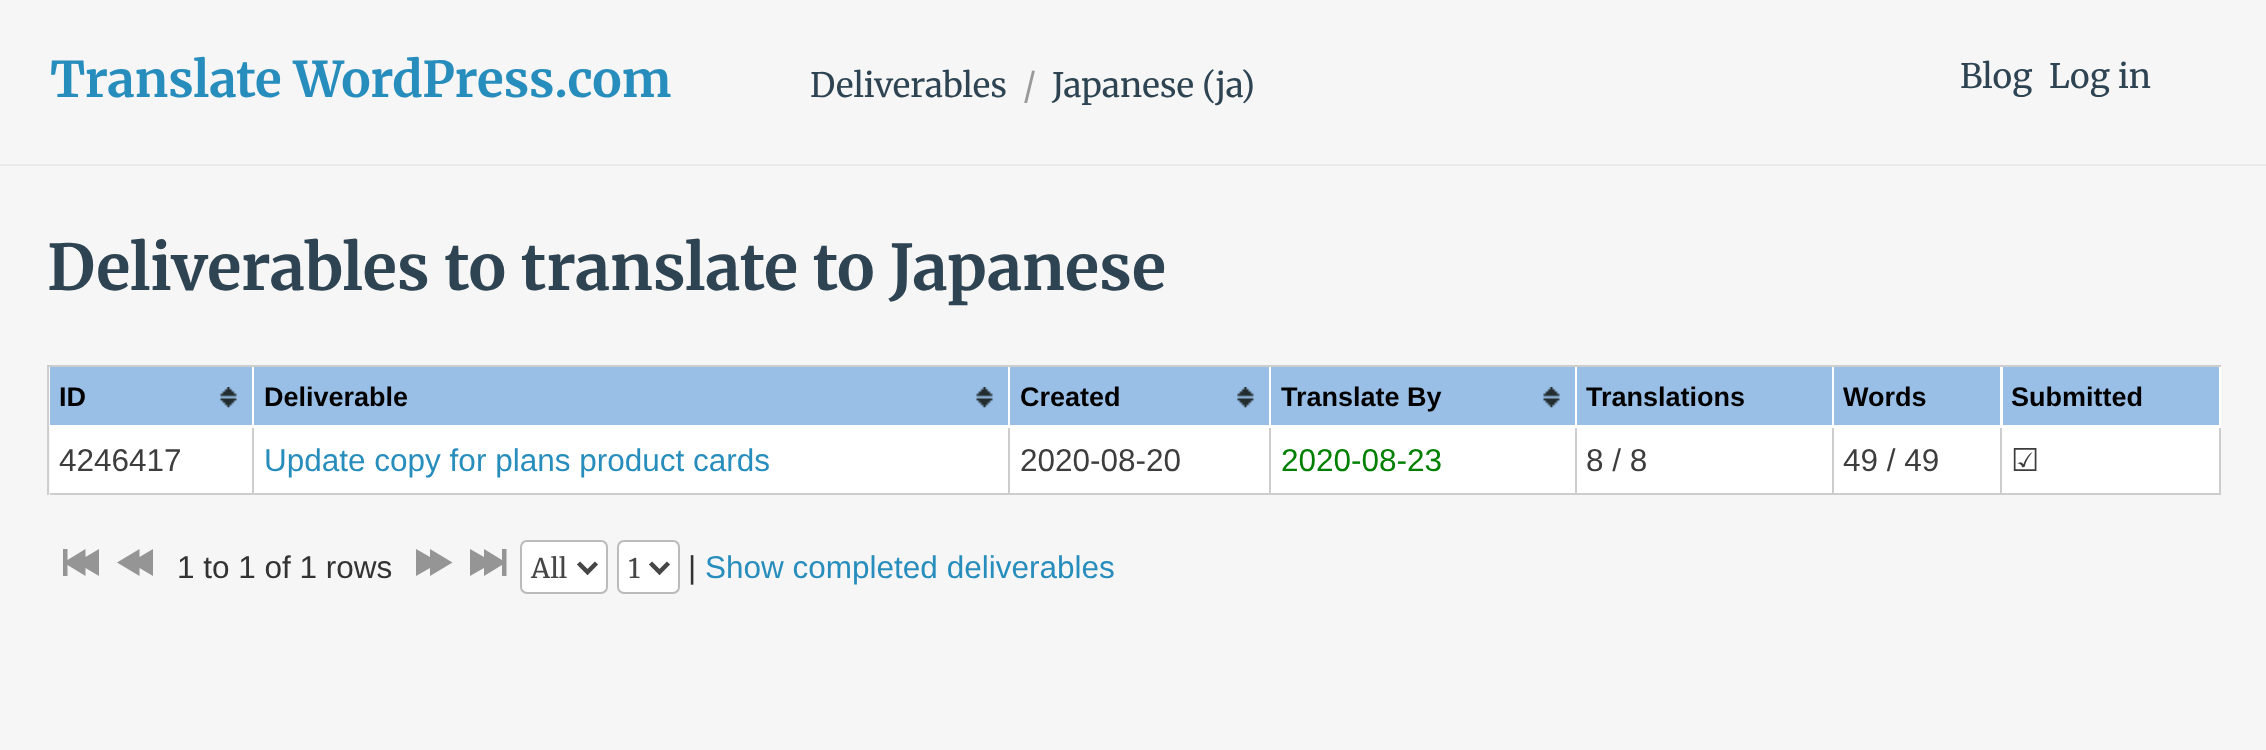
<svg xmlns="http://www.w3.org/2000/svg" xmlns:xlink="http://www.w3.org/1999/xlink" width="2266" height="750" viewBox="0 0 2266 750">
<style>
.cls-1{font:bold 49.25px Merriweather;fill:#278dbc}
.cls-2{font:33.5px Merriweather;fill:#2e4453}
.cls-3{font:33.5px Merriweather;fill:#999999}
.cls-4{font:bold 63px Merriweather;fill:#2e4453}
.cls-5{font:bold 27px Liberation Sans;fill:#000000}
.cls-6{font:31.5px Liberation Sans;fill:#3d3d3d}
.cls-7{font:31.5px Liberation Sans;fill:#278dbc}
.cls-8{font:31.5px Liberation Sans;fill:#008000}
.cls-9{font:31.5px DejaVu Sans;fill:#3d3d3d}
.cls-10{font:31.5px Liberation Sans;fill:#333333}
.cls-11{font:27px Merriweather;fill:#464646}
</style>
<rect width="100%" height="100%" fill="#f6f6f6"/>
<rect fill="#eaeaea" x="0" y="164" width="2266" height="2"/>
<rect fill="#ffffff" x="50" y="367" width="2171" height="126"/>
<rect fill="#cdcdcd" x="47" y="365" width="2174" height="2"/>
<rect fill="#cdcdcd" x="47" y="365" width="2" height="130"/>
<rect fill="#99bfe6" x="50" y="367" width="202" height="58"/>
<image xlink:href="image0.png" x="220" y="387" width="17" height="21"/>
<rect fill="#99bfe6" x="254" y="367" width="754" height="58"/>
<image xlink:href="image1.png" x="976" y="387" width="17" height="21"/>
<rect fill="#99bfe6" x="1010" y="367" width="259" height="58"/>
<image xlink:href="image0.png" x="1237" y="387" width="17" height="21"/>
<rect fill="#99bfe6" x="1271" y="367" width="304" height="58"/>
<image xlink:href="image0.png" x="1543" y="387" width="17" height="21"/>
<rect fill="#99bfe6" x="1577" y="367" width="255" height="58"/>
<rect fill="#99bfe6" x="1834" y="367" width="166" height="58"/>
<rect fill="#99bfe6" x="2003" y="367" width="216" height="58"/>
<rect fill="#cdcdcd" x="252" y="428" width="2" height="67"/>
<rect fill="#cdcdcd" x="50" y="493" width="204" height="2"/>
<rect fill="#cdcdcd" x="1008" y="428" width="2" height="67"/>
<rect fill="#cdcdcd" x="254" y="493" width="756" height="2"/>
<rect fill="#cdcdcd" x="1269" y="428" width="2" height="67"/>
<rect fill="#cdcdcd" x="1010" y="493" width="261" height="2"/>
<rect fill="#cdcdcd" x="1575" y="428" width="2" height="67"/>
<rect fill="#cdcdcd" x="1271" y="493" width="306" height="2"/>
<rect fill="#cdcdcd" x="1832" y="428" width="2" height="67"/>
<rect fill="#cdcdcd" x="1577" y="493" width="257" height="2"/>
<rect fill="#cdcdcd" x="2000" y="428" width="2" height="67"/>
<rect fill="#cdcdcd" x="1834" y="493" width="169" height="2"/>
<rect fill="#cdcdcd" x="2219" y="428" width="2" height="67"/>
<rect fill="#cdcdcd" x="2003" y="493" width="218" height="2"/>
<path fill="#959595" d="M85.5 557L99 549V576L85.5 568V576L67.5 565V576H63V549H67.5V560L85.5 549Z"/>
<path fill="#959595" d="M117 562.5L139.5 549V557L153 549V576L139.5 568V576Z"/>
<path fill="#959595" d="M452.5 562.5L430 576V568L416 576V549L430 557V549Z"/>
<path fill="#959595" d="M484 568L470 576V549L484 557V549L502 560V549H506.5V576H502V565L484 576Z"/>
<rect fill="#ffffff" stroke="#bbbbbb" stroke-width="2" x="521" y="541" width="86" height="52" rx="6"/>
<path fill="none" stroke="#464646" stroke-width="4.5" d="M578.5 563L587.5 572L596.5 563"/>
<rect fill="#ffffff" stroke="#bbbbbb" stroke-width="2" x="618" y="541" width="61" height="52" rx="6"/>
<path fill="none" stroke="#464646" stroke-width="4.5" d="M650.5 563L659.5 572L668.5 563"/>
<text class="cls-1" x="50" y="97">Translate WordPress.com</text>
<text class="cls-2" x="810" y="97">Deliverables</text>
<text class="cls-3" x="1023" y="97">/</text>
<text class="cls-2" x="1052" y="97">Japanese (ja)</text>
<text class="cls-2" x="1960" y="88">Blog</text>
<text class="cls-2" x="2049" y="88">Log in</text>
<text class="cls-4" x="47" y="290">Deliverables to translate to Japanese</text>
<text class="cls-5" x="59" y="406">ID</text>
<text class="cls-5" x="264" y="406">Deliverable</text>
<text class="cls-5" x="1020" y="406">Created</text>
<text class="cls-5" x="1281" y="406">Translate By</text>
<text class="cls-5" x="1586" y="406">Translations</text>
<text class="cls-5" x="1843" y="406">Words</text>
<text class="cls-5" x="2011" y="406">Submitted</text>
<text class="cls-6" x="59" y="471">4246417</text>
<text class="cls-7" x="264" y="471">Update copy for plans product cards</text>
<text class="cls-6" x="1020" y="471">2020-08-20</text>
<text class="cls-8" x="1281" y="471">2020-08-23</text>
<text class="cls-6" x="1586" y="471">8 / 8</text>
<text class="cls-6" x="1843" y="471">49 / 49</text>
<text class="cls-9" x="2011" y="471">☑</text>
<text class="cls-10" x="177" y="578">1 to 1 of 1 rows</text>
<text class="cls-11" x="531" y="578">All</text>
<text class="cls-11" x="628" y="578">1</text>
<text class="cls-10" x="688" y="578">|</text>
<text class="cls-7" x="705" y="578">Show completed deliverables</text>
</svg>
